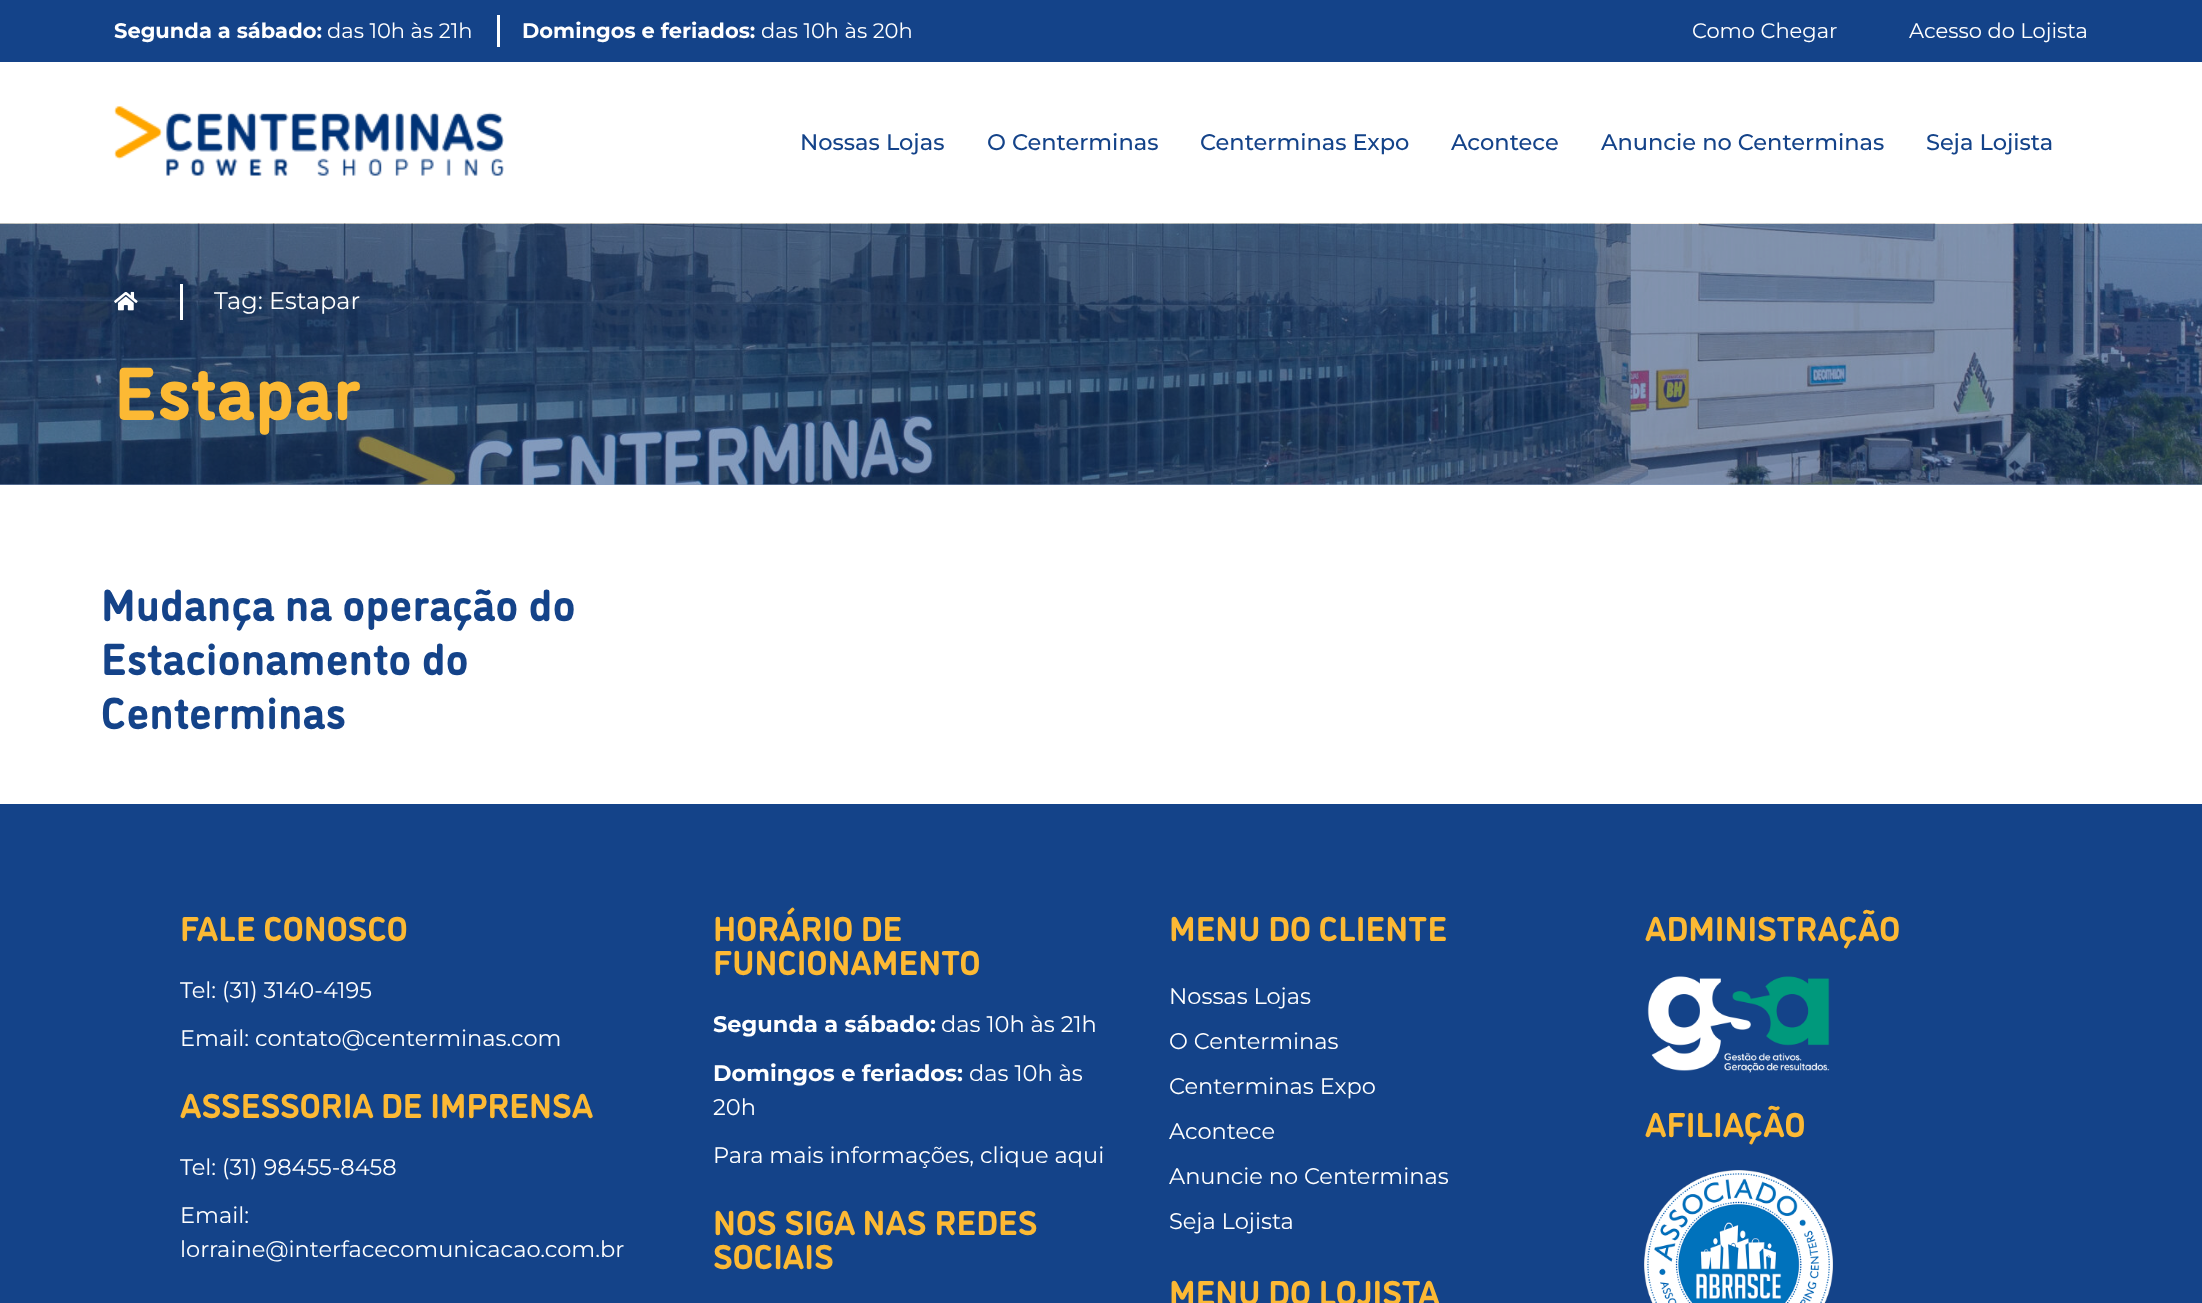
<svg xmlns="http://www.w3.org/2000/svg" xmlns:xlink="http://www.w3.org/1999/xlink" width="2202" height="1303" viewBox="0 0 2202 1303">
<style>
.cls-1{font:bold 21px Montserrat;fill:#ffffff}
.cls-2{font:21px Montserrat;fill:#ffffff}
.cls-3{font:500 22.5px Montserrat;fill:#144389}
.cls-4{font:24px Montserrat;fill:#ffffff}
.cls-5{font:bold 75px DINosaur;fill:#fcb934}
.cls-6{font:bold 45px DINosaur;fill:#144389}
.cls-7{font:bold 34.5px DINosaur;fill:#fcb934}
.cls-8{font:22.5px Montserrat;fill:#ffffff}
.cls-9{font:bold 22.5px Montserrat;fill:#ffffff}
</style>
<rect width="100%" height="100%" fill="#ffffff"/>
<rect fill="#8aa1c4" x="0" y="484" width="2202" height="1"/>
<rect fill="#144389" x="0" y="0" width="2202" height="62"/>
<rect fill="#ffffff" x="497" y="15" width="3" height="32"/>
<image xlink:href="image0.png" x="114" y="106" width="390" height="70"/>
<image xlink:href="image1.png" x="0" y="223" width="2202" height="262"/>
<image xlink:href="image2.png" x="114" y="291" width="24" height="20"/>
<rect fill="#ffffff" x="180" y="284" width="3" height="36"/>
<rect fill="#144389" x="0" y="804" width="2202" height="499"/>
<image xlink:href="image3.png" x="1647" y="976" width="183" height="97"/>
<image xlink:href="image4.png" x="1644" y="1170" width="189" height="133"/>
<text class="cls-1" x="114" y="38">Segunda a sábado:</text>
<text class="cls-2" x="327" y="38">das 10h às 21h</text>
<text class="cls-1" x="522" y="38">Domingos e feriados:</text>
<text class="cls-2" x="761" y="38">das 10h às 20h</text>
<text class="cls-2" x="1692" y="38">Como Chegar</text>
<text class="cls-2" x="1909" y="38">Acesso do Lojista</text>
<text class="cls-3" x="800" y="150">Nossas Lojas</text>
<text class="cls-3" x="987" y="150">O Centerminas</text>
<text class="cls-3" x="1200" y="150">Centerminas Expo</text>
<text class="cls-3" x="1451" y="150">Acontece</text>
<text class="cls-3" x="1601" y="150">Anuncie no Centerminas</text>
<text class="cls-3" x="1926" y="150">Seja Lojista</text>
<text class="cls-4" x="214" y="309">Tag: Estapar</text>
<text class="cls-5" x="114" y="420">Estapar</text>
<text class="cls-6"><tspan x="101" y="621">Mudança na operação do</tspan><tspan x="101" y="675">Estacionamento do</tspan><tspan x="101" y="729">Centerminas</tspan></text>
<text class="cls-7" x="180" y="941">FALE CONOSCO</text>
<text class="cls-8" x="180" y="998">Tel: (31) 3140-4195</text>
<text class="cls-8" x="180" y="1046">Email: contato@centerminas.com</text>
<text class="cls-7" x="180" y="1118">ASSESSORIA DE IMPRENSA</text>
<text class="cls-8" x="180" y="1175">Tel: (31) 98455-8458</text>
<text class="cls-8"><tspan x="180" y="1223">Email:</tspan><tspan x="180" y="1257">lorraine@interfacecomunicacao.com.br</tspan></text>
<text class="cls-7"><tspan x="713" y="941">HORÁRIO DE</tspan><tspan x="713" y="975">FUNCIONAMENTO</tspan></text>
<text class="cls-9" x="713" y="1032">Segunda a sábado:</text>
<text class="cls-8" x="941" y="1032">das 10h às 21h</text>
<text class="cls-9" x="713" y="1081">Domingos e feriados:</text>
<text class="cls-8" x="969" y="1081">das 10h às</text>
<text class="cls-8" x="713" y="1115">20h</text>
<text class="cls-8" x="713" y="1163">Para mais informações, clique aqui</text>
<text class="cls-7"><tspan x="713" y="1235">NOS SIGA NAS REDES</tspan><tspan x="713" y="1269">SOCIAIS</tspan></text>
<text class="cls-7" x="1169" y="941">MENU DO CLIENTE</text>
<text class="cls-8" x="1169" y="1004">Nossas Lojas</text>
<text class="cls-8" x="1169" y="1049">O Centerminas</text>
<text class="cls-8" x="1169" y="1094">Centerminas Expo</text>
<text class="cls-8" x="1169" y="1139">Acontece</text>
<text class="cls-8" x="1169" y="1184">Anuncie no Centerminas</text>
<text class="cls-8" x="1169" y="1229">Seja Lojista</text>
<text class="cls-7" x="1169" y="1305">MENU DO LOJISTA</text>
<text class="cls-7" x="1645" y="941">ADMINISTRAÇÃO</text>
<text class="cls-7" x="1645" y="1137">AFILIAÇÃO</text>
</svg>
